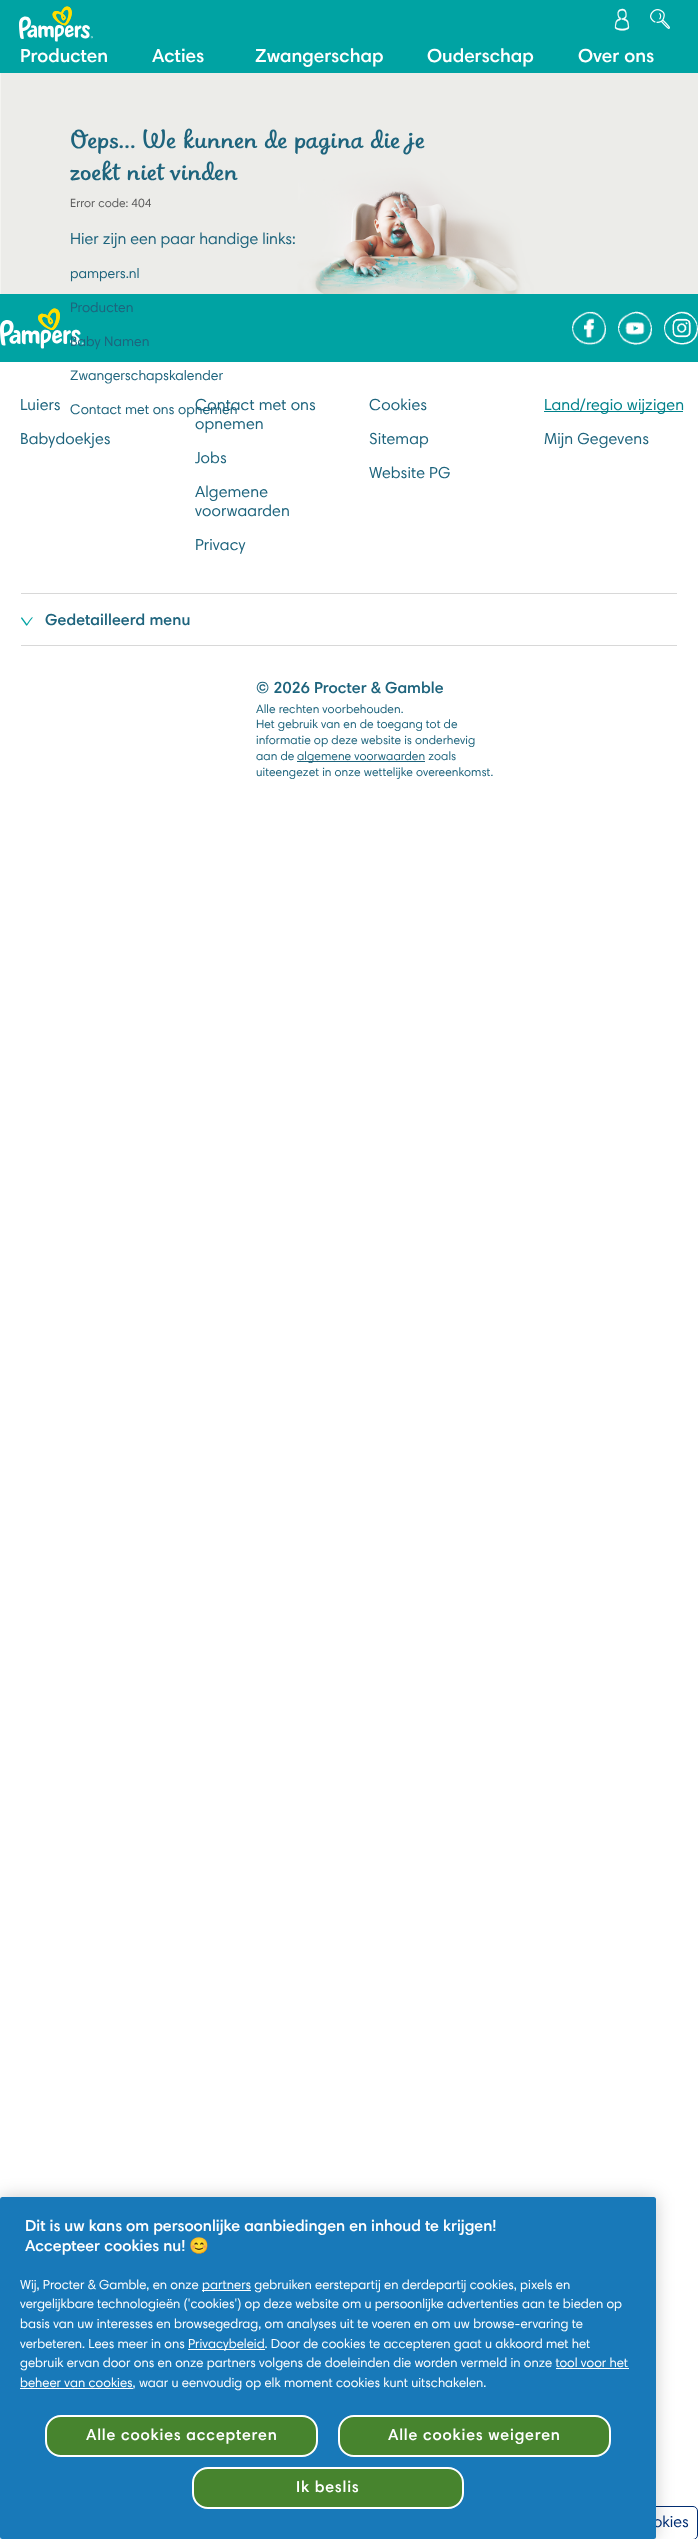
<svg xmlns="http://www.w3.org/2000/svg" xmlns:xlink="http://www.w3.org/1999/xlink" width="698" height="2539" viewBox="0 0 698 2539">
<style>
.cls-1{font:600 19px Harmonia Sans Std;fill:#ffffff}
.cls-2{font:bold 29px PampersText;fill:#1e647d}
.cls-3{font:12px Harmonia Sans Std;fill:#5c5c5c}
.cls-4{font:16px Harmonia Sans Std;fill:#1e647d}
.cls-5{font:14px Harmonia Sans Std;fill:#1e647d}
.cls-6{font:16px Harmonia Sans Std;letter-spacing:0.1px;fill:#1e647d}
.cls-7{font:16px Harmonia Sans Std;letter-spacing:0.1px;fill:#00818a}
.cls-8{font:600 16px Harmonia Sans Std;letter-spacing:0.1px;fill:#1e647d}
.cls-9{font:600 16px Harmonia Sans Std;letter-spacing:0.05px;fill:#1e647d}
.cls-10{font:12px Harmonia Sans Std;letter-spacing:0.05px;fill:#1e647d}
.cls-11{font:16px Harmonia Sans Std;fill:#002d72}
.cls-12{font:600 16px Harmonia Sans Std;letter-spacing:0.8px;fill:#ffffff}
.cls-13{font:13.1px Harmonia Sans Std;fill:#ffffff}
.cls-14{font:bold 16px Noto Color Emoji;fill:#ffffff}
.cls-15{font:600 16px Harmonia Sans Std;fill:#ffffff}
</style>
<rect width="100%" height="100%" fill="#ffffff"/>
<rect fill="#00a3a3" x="0" y="0" width="698" height="73"/>
<image xlink:href="image0.png" x="19" y="6" width="74" height="36"/>
<image xlink:href="image1.png" x="614" y="8" width="16" height="23"/>
<image xlink:href="image2.png" x="650" y="9" width="20" height="20"/>
<image xlink:href="image3.png" x="0" y="73" width="698" height="221"/>
<rect fill="#00a3a3" x="0" y="294" width="698" height="68"/>
<image xlink:href="image4.png" x="0" y="308" width="84" height="41"/>
<image xlink:href="image5.png" x="572" y="311" width="34" height="34"/>
<image xlink:href="image6.png" x="618" y="311" width="34" height="34"/>
<image xlink:href="image7.png" x="664" y="311" width="34" height="34"/>
<rect fill="#00818a" x="544" y="411" width="139" height="1"/>
<rect fill="#d8d8d8" x="21" y="593" width="656" height="1"/>
<rect fill="#d8d8d8" x="21" y="645" width="656" height="1"/>
<image xlink:href="image8.png" x="21" y="617" width="12" height="9"/>
<rect fill="#1e647d" x="297" y="761" width="128" height="1"/>
<rect fill="none" stroke="#002d72" x="569.5" y="2506.5" width="128" height="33" rx="4.5"/>
<rect fill="#000000" fill-opacity="0.2" filter="blur(9px)" x="0" y="2197" width="656" height="342" rx="2.5"/>
<text class="cls-1" x="20" y="62">Producten</text>
<text class="cls-1" x="152" y="62">Acties</text>
<text class="cls-1" x="255" y="62">Zwangerschap</text>
<text class="cls-1" x="427" y="62">Ouderschap</text>
<text class="cls-1" x="578" y="62">Over ons</text>
<text class="cls-2"><tspan x="70" y="148">Oeps… We kunnen de pagina die je</tspan><tspan x="70" y="180">zoekt niet vinden</tspan></text>
<text class="cls-3" x="70" y="207">Error code: 404</text>
<text class="cls-4" x="70" y="244">Hier zijn een paar handige links:</text>
<text class="cls-5" x="70" y="278">pampers.nl</text>
<text class="cls-5" x="70" y="312">Producten</text>
<text class="cls-5" x="70" y="346">Baby Namen</text>
<text class="cls-5" x="70" y="380">Zwangerschapskalender</text>
<text class="cls-6" x="20" y="410">Luiers</text>
<text class="cls-6" x="20" y="444">Babydoekjes</text>
<text class="cls-6" x="195" y="410">Contact met ons</text>
<text class="cls-5" x="70" y="414">Contact met ons opnemen</text>
<text class="cls-6" x="195" y="429">opnemen</text>
<text class="cls-6" x="195" y="463">Jobs</text>
<text class="cls-6"><tspan x="195" y="497">Algemene</tspan><tspan x="195" y="516">voorwaarden</tspan></text>
<text class="cls-6" x="195" y="550">Privacy</text>
<text class="cls-6" x="369" y="410">Cookies</text>
<text class="cls-6" x="369" y="444">Sitemap</text>
<text class="cls-6" x="369" y="478">Website PG</text>
<text class="cls-7" x="544" y="410">Land/regio wijzigen</text>
<text class="cls-6" x="544" y="444">Mijn Gegevens</text>
<text class="cls-8" x="45" y="625">Gedetailleerd menu</text>
<text class="cls-9" x="256" y="693">© 2026 Procter &amp; Gamble</text>
<text class="cls-10"><tspan x="256" y="713">Alle rechten voorbehouden.</tspan><tspan x="256" y="728">Het gebruik van en de toegang tot de</tspan><tspan x="256" y="744">informatie op deze website is onderhevig</tspan><tspan x="256" y="760">aan de</tspan></text>
<text class="cls-10" x="297" y="760">algemene voorwaarden zoals</text>
<text class="cls-10" x="256" y="776">uiteengezet in onze wettelijke overeenkomst.</text>
<text class="cls-11" x="653" y="2527">okies</text>
<rect fill="#1879b9" x="0" y="2197" width="656" height="342" rx="2.5"/>
<rect fill="#47842e" stroke="#ffffff" stroke-width="2" x="193" y="2468" width="270" height="40" rx="15"/>
<text class="cls-12" x="296" y="2492">Ik beslis</text>
<rect fill="#47842e" stroke="#ffffff" stroke-width="2" x="339" y="2416" width="271" height="40" rx="15"/>
<text class="cls-12" x="388" y="2440">Alle cookies weigeren</text>
<rect fill="#47842e" stroke="#ffffff" stroke-width="2" x="46" y="2416" width="271" height="40" rx="15"/>
<text class="cls-12" x="86" y="2440">Alle cookies accepteren</text>
<rect fill="#ffffff" x="20" y="2388" width="113" height="1"/>
<text class="cls-13" x="20" y="2387">beheer van cookies, waar u eenvoudig op elk moment cookies kunt uitschakelen.</text>
<rect fill="#ffffff" x="556" y="2368" width="73" height="1"/>
<text class="cls-13" x="20" y="2367">gebruik ervan door ons en onze partners volgens de doeleinden die worden vermeld in onze tool voor het</text>
<rect fill="#ffffff" x="188" y="2349" width="77" height="1"/>
<text class="cls-13" x="188" y="2348">Privacybeleid. Door de cookies te accepteren gaat u akkoord met het</text>
<text class="cls-13" x="20" y="2348">verbeteren. Lees meer in ons</text>
<text class="cls-13" x="20" y="2328">basis van uw interesses en browsegedrag, om analyses uit te voeren en om uw browse-ervaring te</text>
<text class="cls-13" x="20" y="2308">vergelijkbare technologieën ('cookies') op deze website om u persoonlijke advertenties aan te bieden op</text>
<rect fill="#ffffff" x="202" y="2290" width="49" height="1"/>
<text class="cls-13" x="202" y="2289">partners gebruiken eerstepartij en derdepartij cookies, pixels en</text>
<text class="cls-13" x="20" y="2289">Wij, Procter &amp; Gamble, en onze</text>
<text class="cls-14" x="189" y="2251">😊</text>
<text class="cls-15" x="25" y="2251">Accepteer cookies nu!</text>
<text class="cls-15" x="25" y="2231">Dit is uw kans om persoonlijke aanbiedingen en inhoud te krijgen!</text>
</svg>
